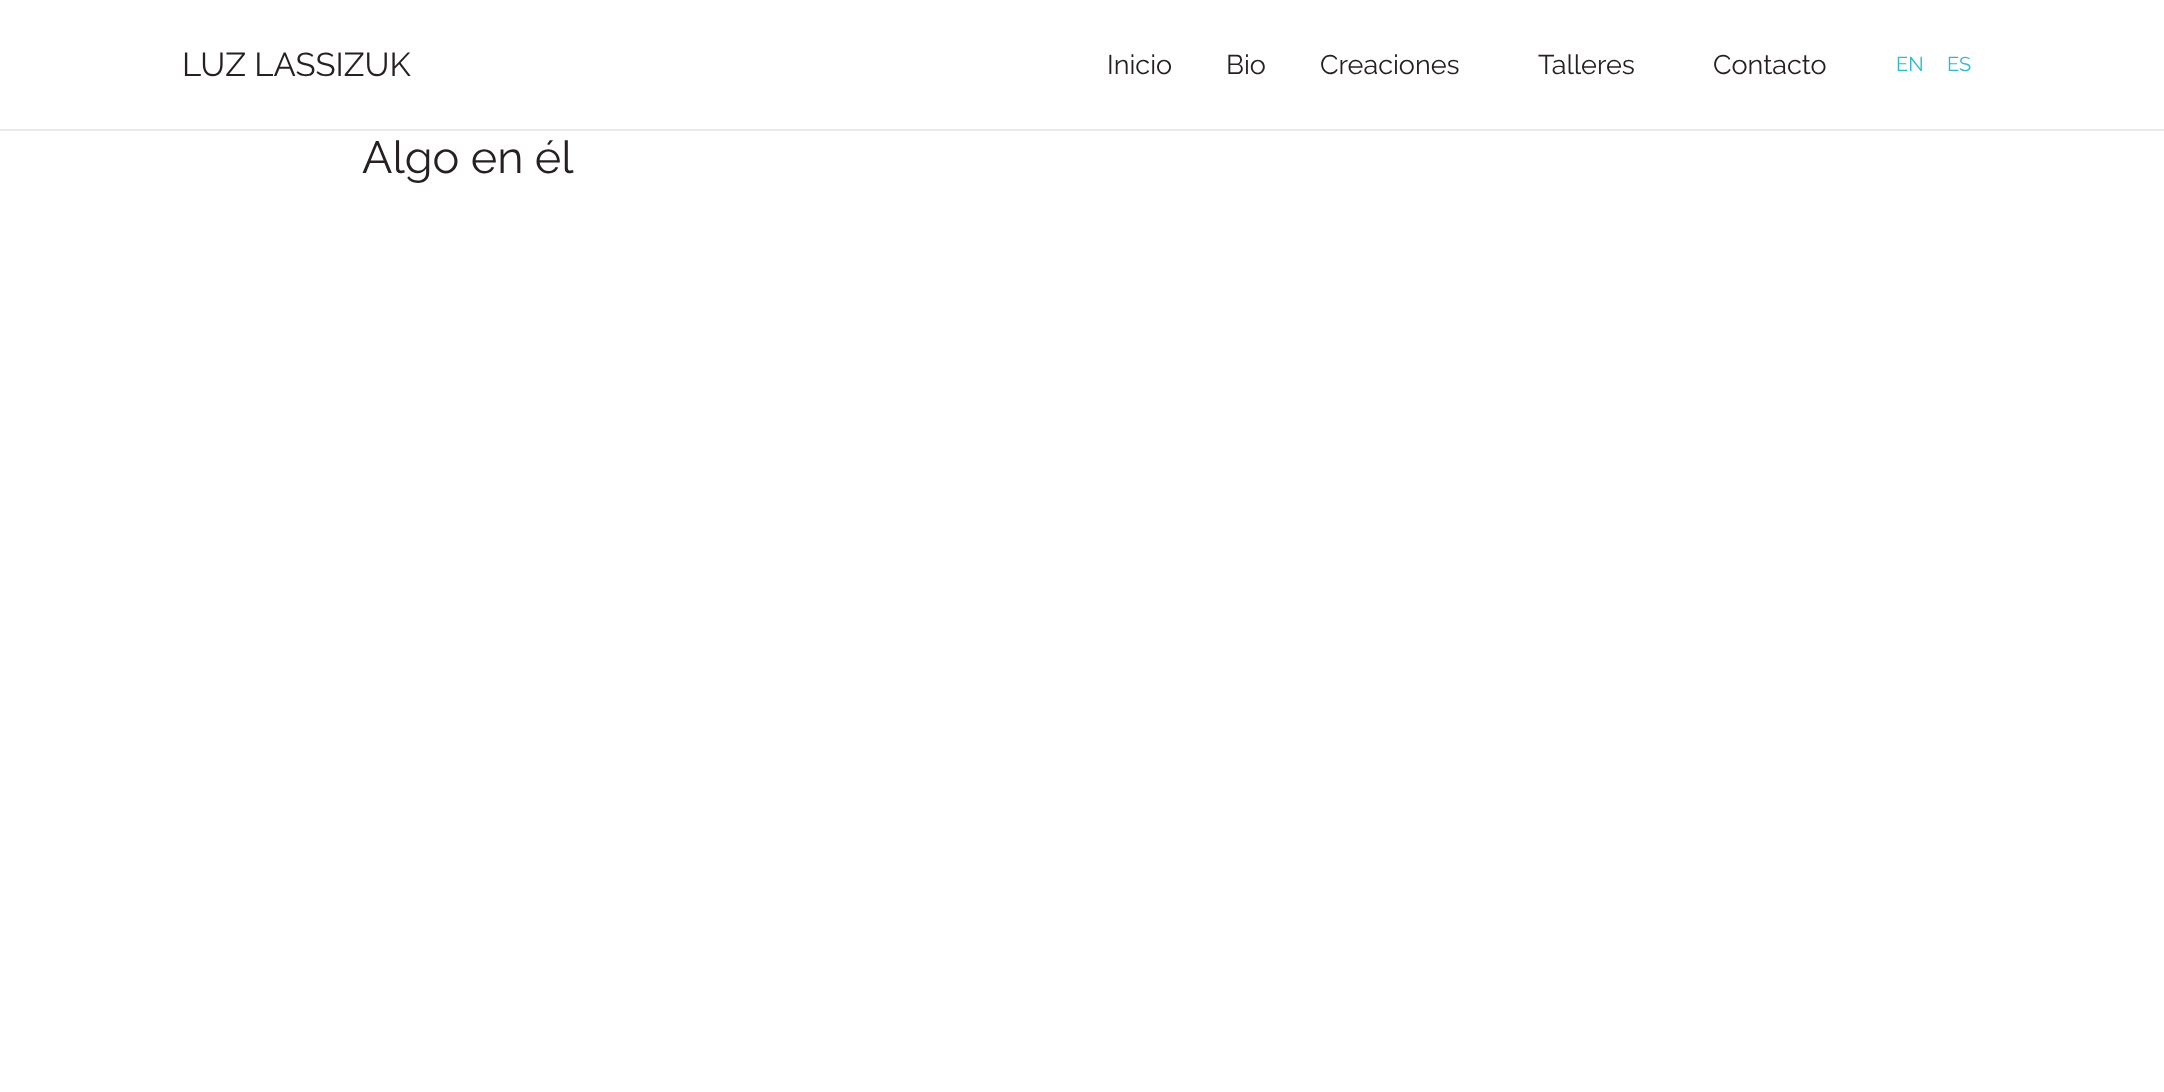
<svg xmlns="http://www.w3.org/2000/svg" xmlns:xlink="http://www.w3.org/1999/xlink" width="2164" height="1092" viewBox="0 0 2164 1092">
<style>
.cls-1{font:100 33px Raleway;fill:#272023}
.cls-2{font:100 27px Raleway;fill:#272023}
.cls-3{font:100 20px Raleway;fill:#2fbbcd}
.cls-4{font:100 45px Raleway;fill:#272023}
</style>
<rect width="100%" height="100%" fill="#ffffff"/>
<rect fill="#eaeaea" x="0" y="129" width="2164" height="2"/>
<text class="cls-1" x="182" y="76">LUZ LASSIZUK</text>
<text class="cls-2" x="1107" y="74">Inicio</text>
<text class="cls-2" x="1226" y="74">Bio</text>
<text class="cls-2" x="1320" y="74">Creaciones</text>
<text class="cls-2" x="1538" y="74">Talleres</text>
<text class="cls-2" x="1713" y="74">Contacto</text>
<text class="cls-3" x="1896" y="71">EN</text>
<text class="cls-3" x="1947" y="71">ES</text>
<text class="cls-4" x="362" y="173">Algo en él</text>
</svg>
